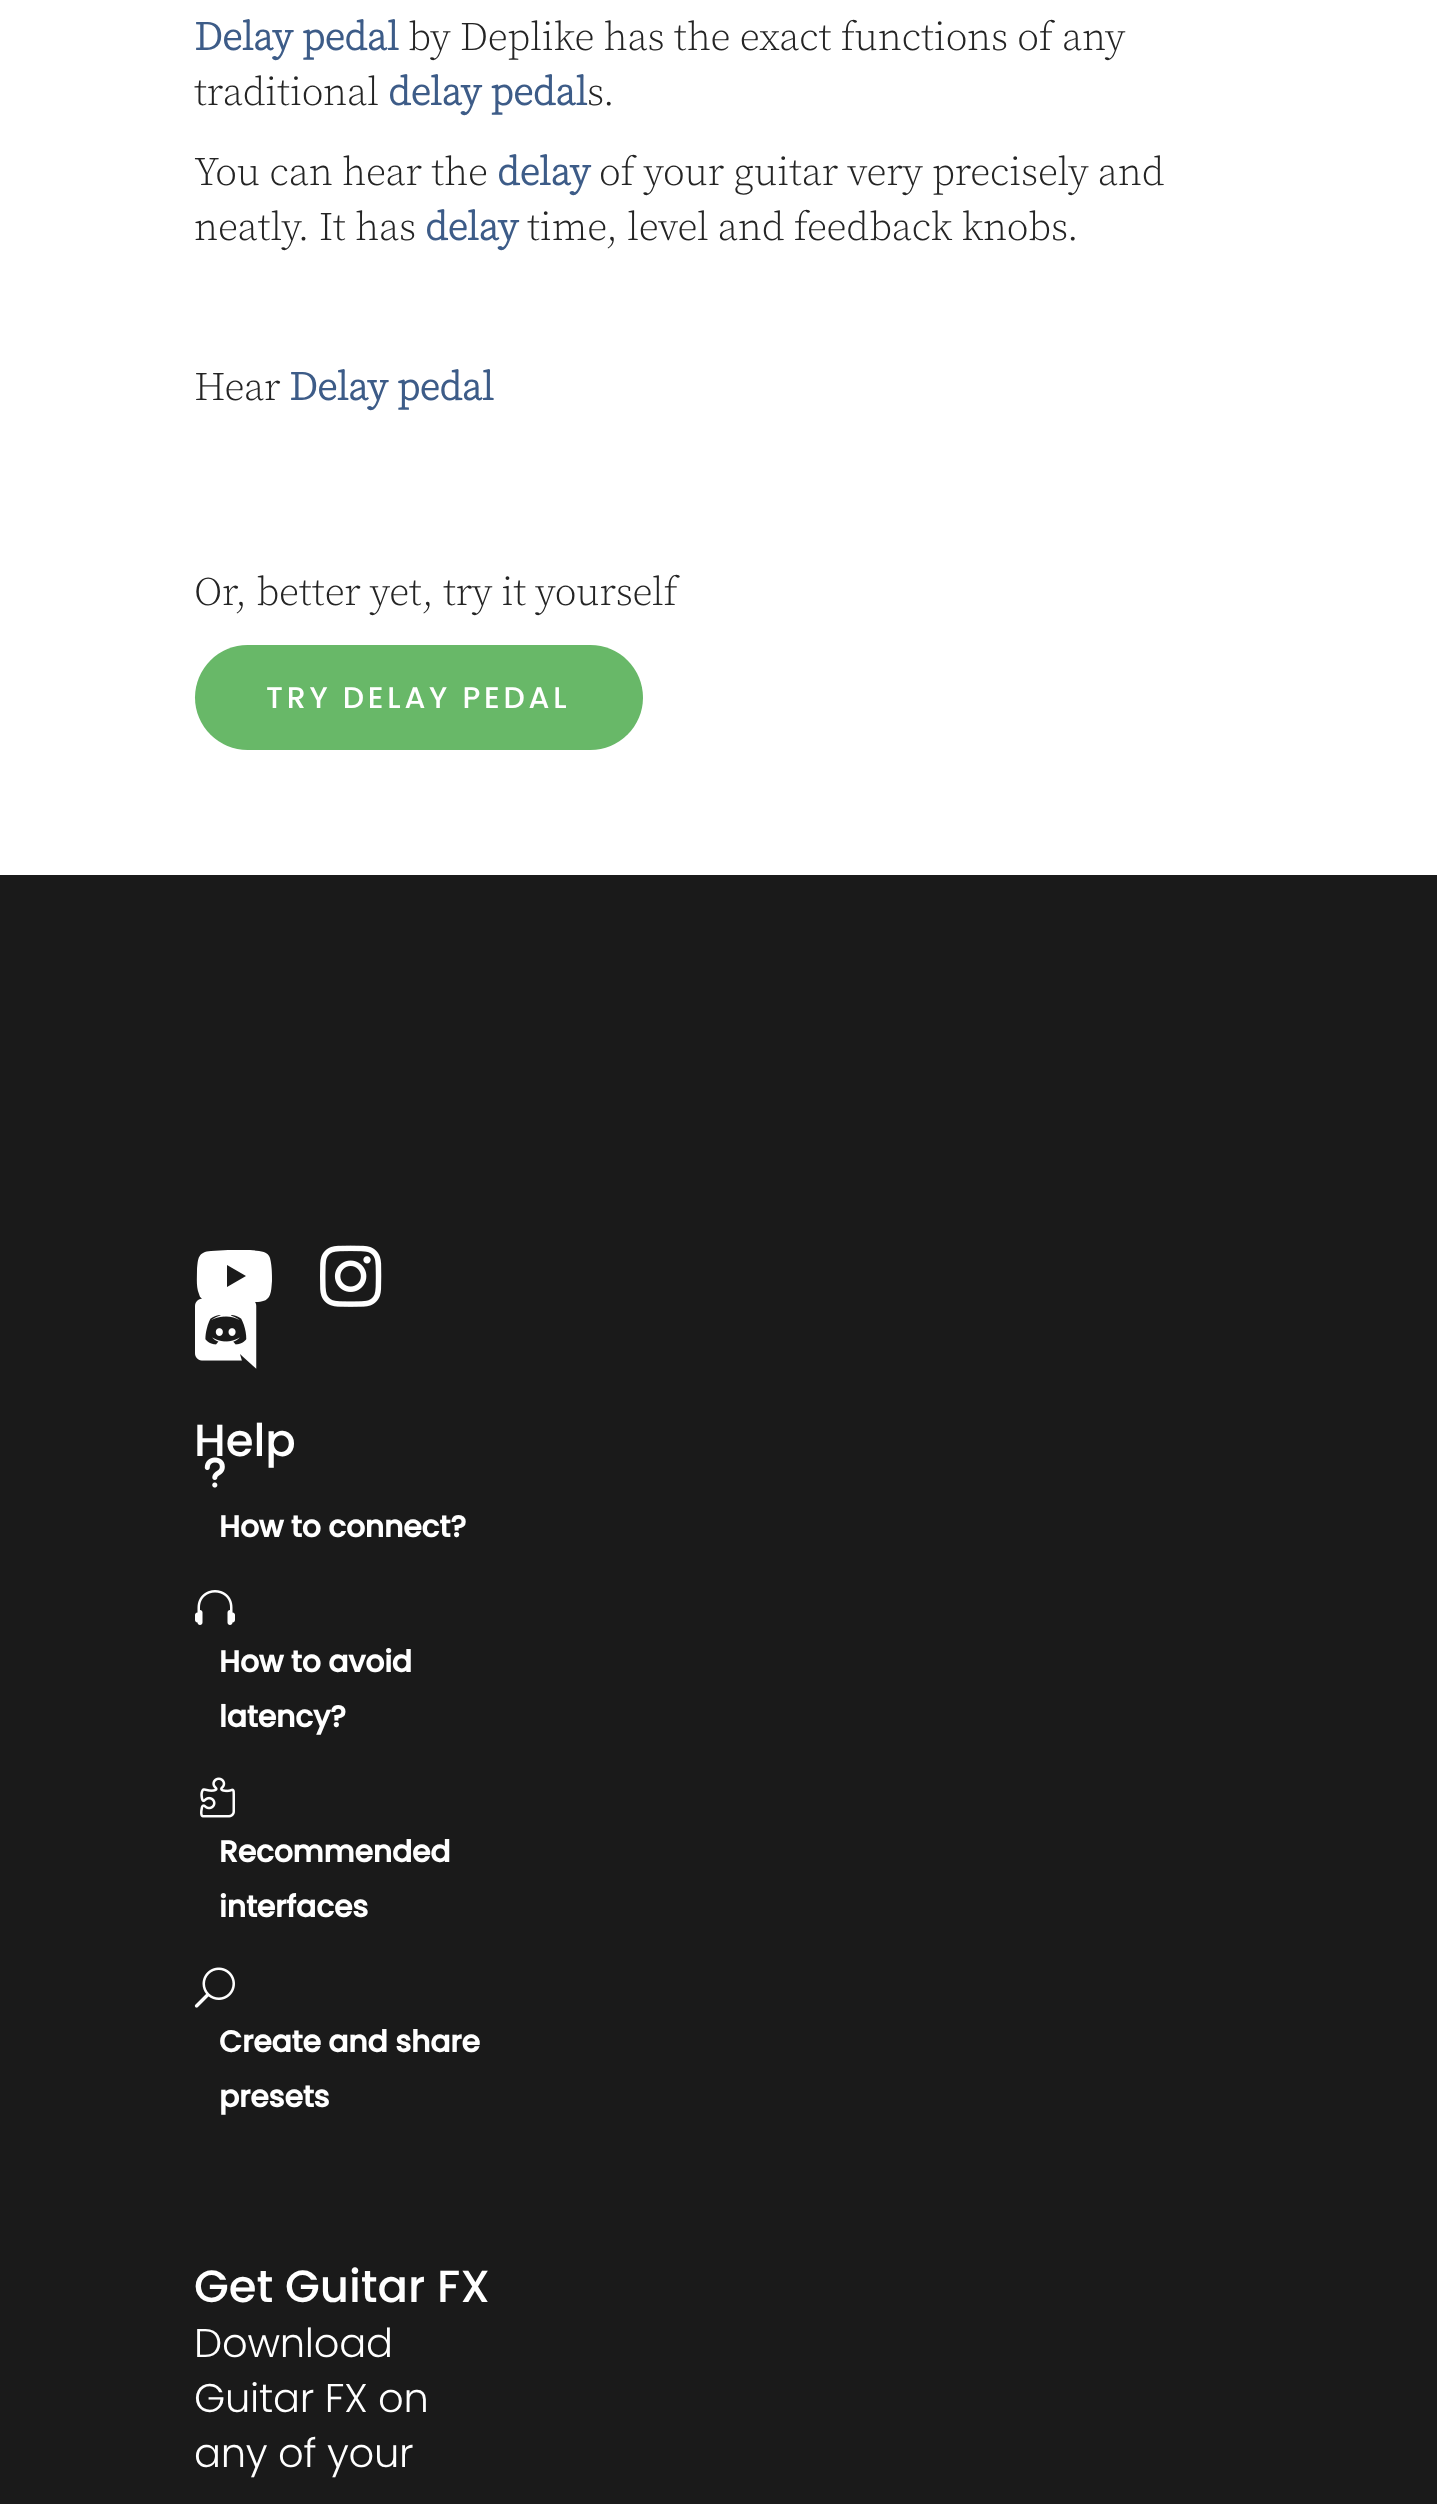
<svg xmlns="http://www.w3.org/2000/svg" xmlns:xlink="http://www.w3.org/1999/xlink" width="1437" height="2504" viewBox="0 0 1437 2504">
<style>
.cls-1{font:bold 40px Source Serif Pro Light;letter-spacing:-0.25px;fill:#3d5c88}
.cls-2{font:300 40px Source Serif Pro Light;letter-spacing:-0.25px;fill:#242424}
.cls-3{font:500 30px Poppins;letter-spacing:3.75px;fill:#ffffff}
.cls-4{font:500 45px Poppins;fill:#ffffff}
.cls-5{font:bold 30px Poppins;letter-spacing:-0.25px;fill:#ffffff}
.cls-6{font:300 40px Poppins;letter-spacing:-0.25px;fill:#ffffff}
</style>
<rect width="100%" height="100%" fill="#ffffff"/>
<rect fill="#68b868" x="195" y="645" width="448" height="105" rx="52.5"/>
<rect fill="#1a1a1a" x="0" y="875" width="1437" height="1629"/>
<path fill="#ffffff" d="M270 1258C268 1250 257 1251 250 1250H228L211 1251C198 1252 198 1258 197 1270C197 1278 196 1287 199 1294C201 1304 217 1302 224 1302H258C271 1301 271 1294 272 1281C272 1274 272 1266 270 1258ZM227 1287V1265L246 1276Z"/>
<image xlink:href="image0.png" x="320" y="1245" width="62" height="62"/>
<image xlink:href="image1.png" x="195" y="1298" width="62" height="71"/>
<image xlink:href="image3.png" x="195" y="1590" width="40" height="35"/>
<image xlink:href="image4.png" x="200" y="1777" width="35" height="41"/>
<image xlink:href="image5.png" x="194" y="1967" width="41" height="41"/>
<text class="cls-1" x="194" y="50">Delay pedal</text>
<text class="cls-2" x="408" y="50">by Deplike has the exact functions of any</text>
<text class="cls-2" x="194" y="105">traditional</text>
<text class="cls-1" x="388" y="105">delay pedal</text>
<text class="cls-2" x="587" y="105">s.</text>
<text class="cls-2" x="194" y="185">You can hear the</text>
<text class="cls-1" x="497" y="185">delay</text>
<text class="cls-2" x="599" y="185">of your guitar very precisely and</text>
<text class="cls-2" x="194" y="240">neatly. It has</text>
<text class="cls-1" x="425" y="240">delay</text>
<text class="cls-2" x="527" y="240">time, level and feedback knobs.</text>
<text class="cls-2" x="194" y="400">Hear</text>
<text class="cls-1" x="289" y="400">Delay pedal</text>
<text class="cls-2" x="194" y="605">Or, better yet, try it yourself</text>
<text class="cls-3" x="266" y="708">TRY DELAY PEDAL</text>
<text class="cls-4" x="194" y="1456">Help</text>
<image xlink:href="image2.png" x="204" y="1457" width="21" height="31"/>
<text class="cls-5" x="219" y="1537">How to connect?</text>
<text class="cls-5"><tspan x="219" y="1672">How to avoid</tspan><tspan x="219" y="1727">latency?</tspan></text>
<text class="cls-5"><tspan x="219" y="1862">Recommended</tspan><tspan x="219" y="1917">interfaces</tspan></text>
<text class="cls-5"><tspan x="219" y="2052">Create and share</tspan><tspan x="219" y="2107">presets</tspan></text>
<text class="cls-4" x="194" y="2302">Get Guitar FX</text>
<text class="cls-6"><tspan x="194" y="2357">Download</tspan><tspan x="194" y="2412">Guitar FX on</tspan><tspan x="194" y="2467">any of your</tspan></text>
</svg>
